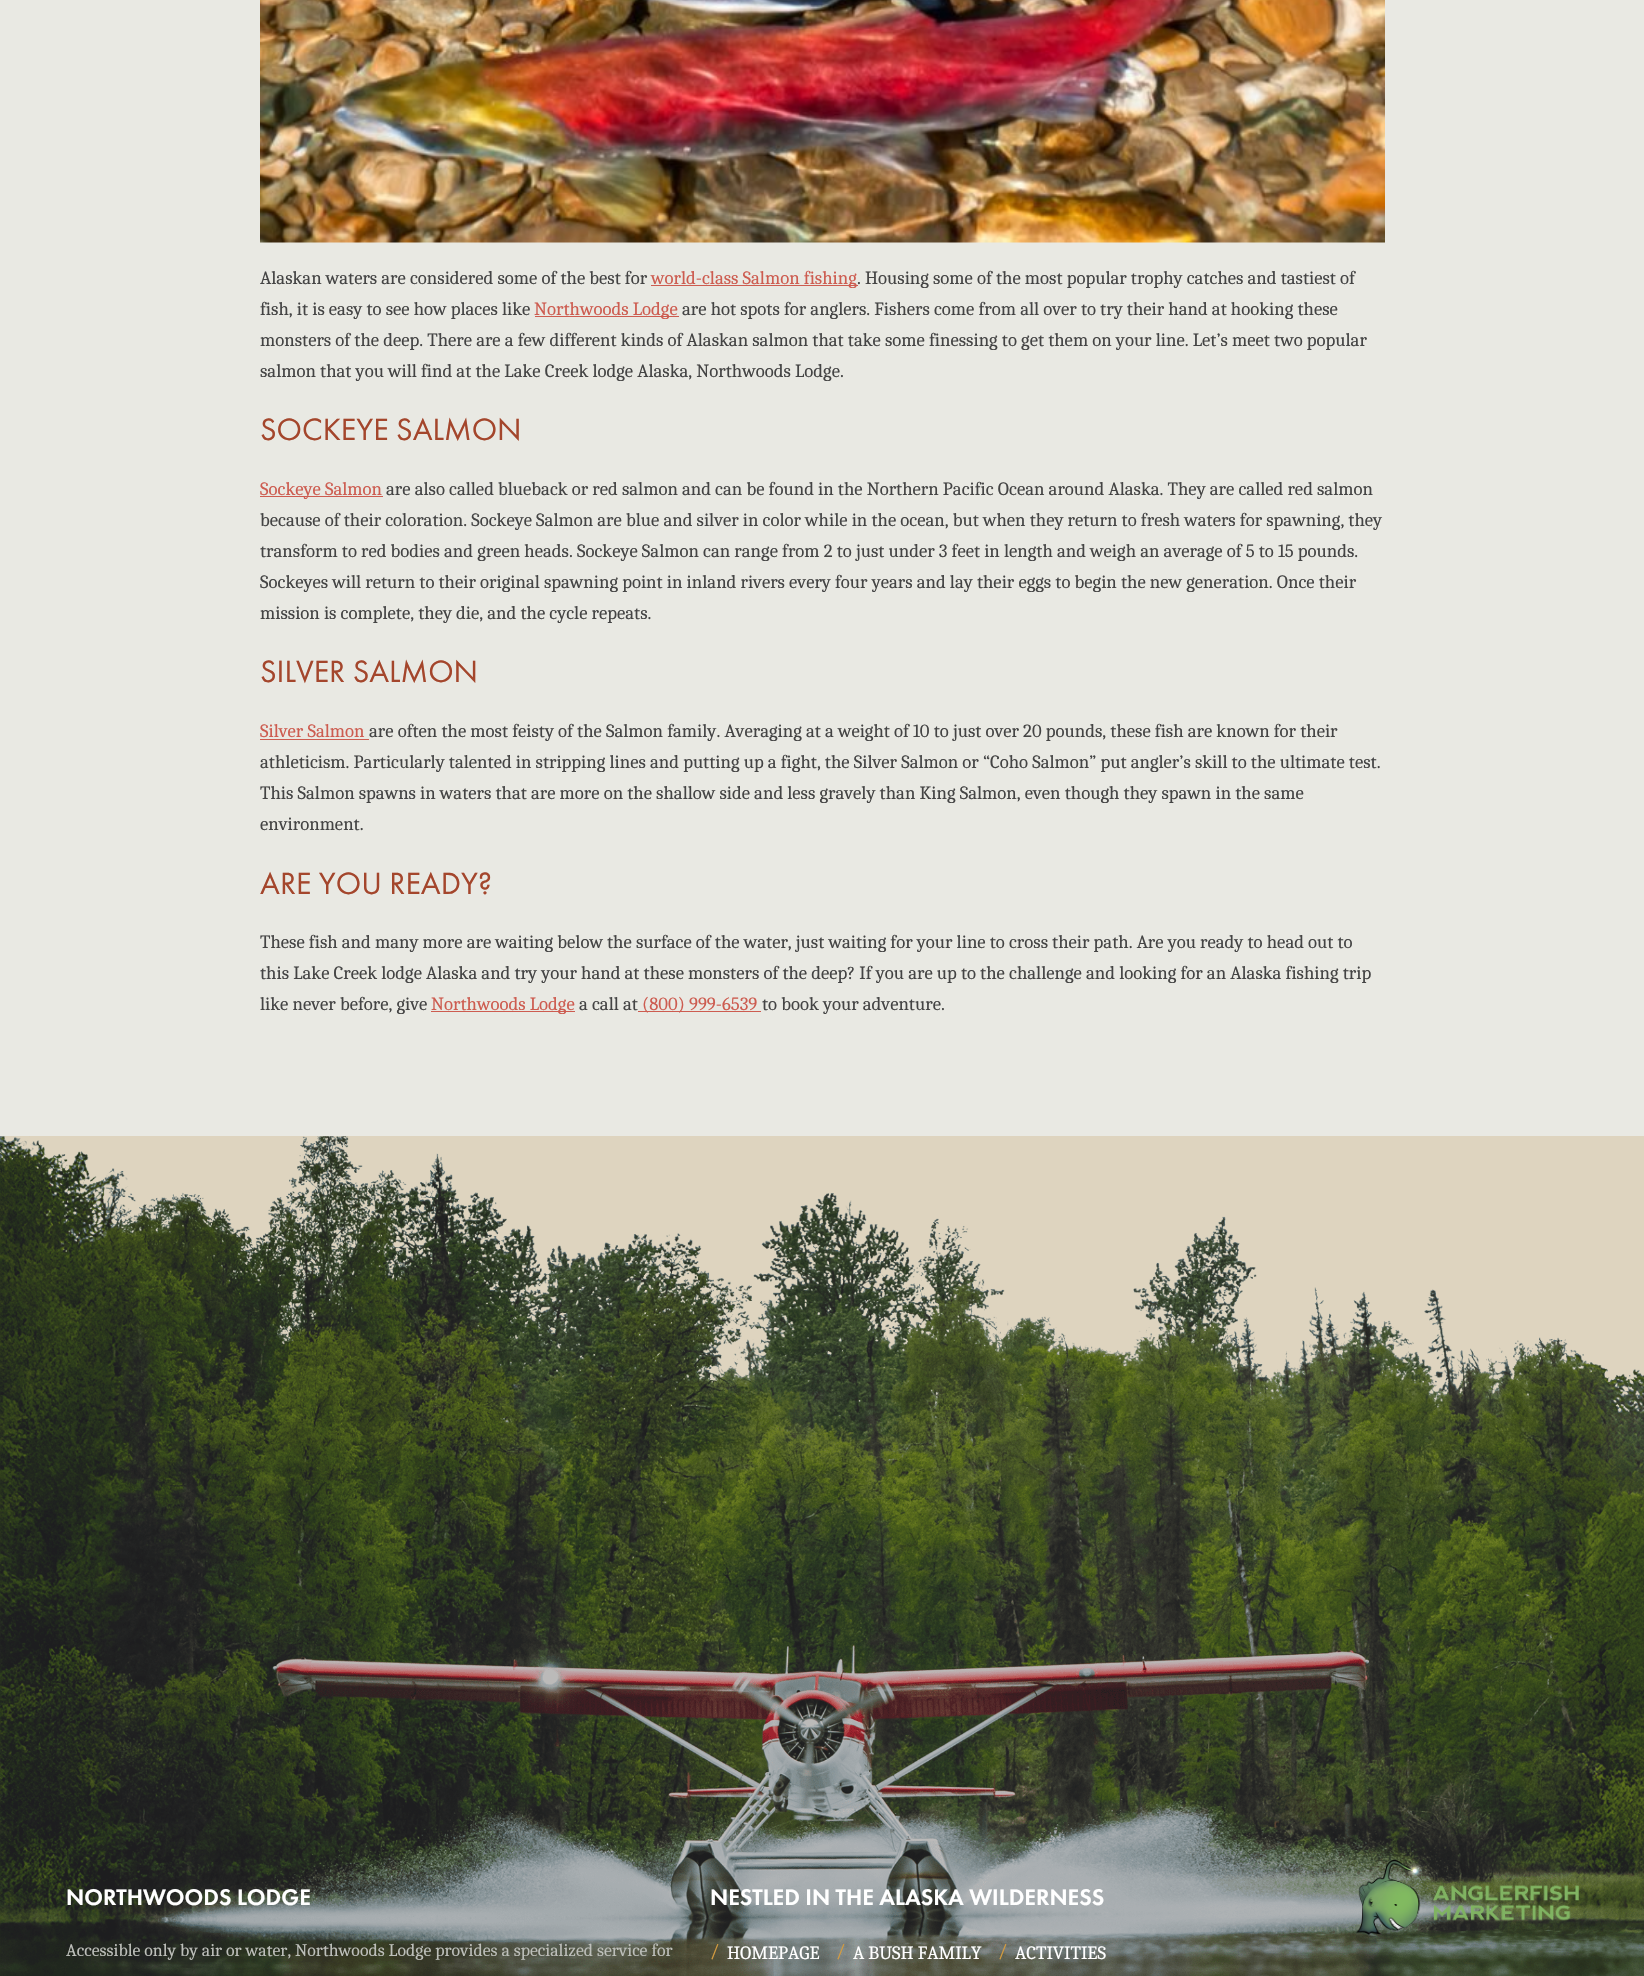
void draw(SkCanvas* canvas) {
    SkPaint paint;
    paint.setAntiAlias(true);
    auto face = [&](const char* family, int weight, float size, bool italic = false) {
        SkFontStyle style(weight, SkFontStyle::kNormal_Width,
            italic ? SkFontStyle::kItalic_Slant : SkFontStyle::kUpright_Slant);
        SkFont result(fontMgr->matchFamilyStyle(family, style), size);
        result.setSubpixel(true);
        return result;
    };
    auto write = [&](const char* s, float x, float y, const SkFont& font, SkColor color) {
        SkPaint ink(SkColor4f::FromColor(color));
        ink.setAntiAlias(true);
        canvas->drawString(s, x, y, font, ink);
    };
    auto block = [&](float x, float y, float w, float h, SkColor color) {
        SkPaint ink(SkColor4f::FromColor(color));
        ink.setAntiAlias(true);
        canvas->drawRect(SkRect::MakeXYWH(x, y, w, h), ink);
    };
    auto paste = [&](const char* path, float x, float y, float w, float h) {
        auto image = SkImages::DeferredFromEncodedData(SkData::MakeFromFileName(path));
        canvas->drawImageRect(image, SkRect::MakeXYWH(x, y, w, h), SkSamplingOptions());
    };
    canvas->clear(SkColorSetRGB(222, 212, 191));
    block(0, 0, 1644, 1136, SkColorSetRGB(233, 233, 227));
    paste("pic1.png", 260, 0, 1125, 243);
    auto kFont1 = face("Caladea", 400, 18.75f);
    write("Alaskan waters are considered some of the best for", 260, 284, kFont1, SkColorSetRGB(68, 68, 68));
    block(651, 285, 207, 1, SkColorSetRGB(205, 92, 80));
    write("world-class Salmon fishing", 651, 284, kFont1, SkColorSetRGB(205, 92, 80));
    write(". Housing some of the most popular trophy catches and tastiest of", 857, 284, kFont1, SkColorSetRGB(68, 68, 68));
    write("fish, it is easy to see how places like", 260, 315, kFont1, SkColorSetRGB(68, 68, 68));
    block(535, 316, 144, 1, SkColorSetRGB(205, 92, 80));
    write("Northwoods Lodge", 534, 315, kFont1, SkColorSetRGB(205, 92, 80));
    write("are hot spots for anglers. Fishers come from all over to try their hand at hooking these", 682, 315, kFont1, SkColorSetRGB(68, 68, 68));
    write("monsters of the deep. There are a few different kinds of Alaskan salmon that take some finessing to get them on your line. Let’s meet two popular", 260, 346, kFont1, SkColorSetRGB(68, 68, 68));
    write("salmon that you will find at the Lake Creek lodge Alaska, Northwoods Lodge.", 260, 377, kFont1, SkColorSetRGB(68, 68, 68));
    auto kFont2 = face("Futura PT", 400, 32);
    write("SOCKEYE SALMON", 260, 440, kFont2, SkColorSetRGB(164, 70, 44));
    block(260, 496, 123, 1, SkColorSetRGB(205, 92, 80));
    write("Sockeye Salmon", 260, 495, kFont1, SkColorSetRGB(205, 92, 80));
    write("are also called blueback or red salmon and can be found in the Northern Pacific Ocean around Alaska. They are called red salmon", 386, 495, kFont1, SkColorSetRGB(68, 68, 68));
    write("because of their coloration. Sockeye Salmon are blue and silver in color while in the ocean, but when they return to fresh waters for spawning, they", 260, 526, kFont1, SkColorSetRGB(68, 68, 68));
    write("transform to red bodies and green heads. Sockeye Salmon can range from 2 to just under 3 feet in length and weigh an average of 5 to 15 pounds.", 260, 557, kFont1, SkColorSetRGB(68, 68, 68));
    write("Sockeyes will return to their original spawning point in inland rivers every four years and lay their eggs to begin the new generation. Once their", 260, 588, kFont1, SkColorSetRGB(68, 68, 68));
    write("mission is complete, they die, and the cycle repeats.", 260, 619, kFont1, SkColorSetRGB(68, 68, 68));
    write("SILVER SALMON", 260, 682, kFont2, SkColorSetRGB(164, 70, 44));
    write("Silver Salmon", 260, 737, kFont1, SkColorSetRGB(205, 92, 80));
    block(260, 739, 109, 1, SkColorSetRGB(205, 92, 80));
    write("are often the most feisty of the Salmon family. Averaging at a weight of 10 to just over 20 pounds, these fish are known for their", 369, 737, kFont1, SkColorSetRGB(68, 68, 68));
    write("athleticism. Particularly talented in stripping lines and putting up a fight, the Silver Salmon or “Coho Salmon” put angler’s skill to the ultimate test.", 260, 768, kFont1, SkColorSetRGB(68, 68, 68));
    write("This Salmon spawns in waters that are more on the shallow side and less gravely than King Salmon, even though they spawn in the same", 260, 799, kFont1, SkColorSetRGB(68, 68, 68));
    write("environment.", 260, 830, kFont1, SkColorSetRGB(68, 68, 68));
    write("ARE YOU READY?", 260, 894, kFont2, SkColorSetRGB(164, 70, 44));
    write("These fish and many more are waiting below the surface of the water, just waiting for your line to cross their path. Are you ready to head out to", 260, 948, kFont1, SkColorSetRGB(68, 68, 68));
    write("this Lake Creek lodge Alaska and try your hand at these monsters of the deep? If you are up to the challenge and looking for an Alaska fishing trip", 260, 979, kFont1, SkColorSetRGB(68, 68, 68));
    write("like never before, give", 260, 1010, kFont1, SkColorSetRGB(68, 68, 68));
    block(431, 1011, 144, 1, SkColorSetRGB(205, 92, 80));
    write("Northwoods Lodge", 431, 1010, kFont1, SkColorSetRGB(205, 92, 80));
    write("a call at", 579, 1010, kFont1, SkColorSetRGB(68, 68, 68));
    block(638, 1011, 123, 1, SkColorSetRGB(205, 92, 80));
    write("(800) 999-6539", 642, 1010, kFont1, SkColorSetRGB(205, 92, 80));
    write("to book your adventure.", 762, 1010, kFont1, SkColorSetRGB(68, 68, 68));
    paste("pic2.png", 0, 1136, 1644, 840);
    auto kFont3 = face("Futura PT", 500, 23.4f);
    write("NORTHWOODS LODGE", 66, 1905, kFont3, SK_ColorWHITE);
    auto kFont4 = face("Caladea", 400, 17.8f);
    write("Accessible only by air or water, Northwoods Lodge provides a specialized service for", 66, 1956, kFont4, SkColorSetRGB(189, 191, 186));
    write("NESTLED IN THE ALASKA WILDERNESS", 710, 1905, kFont3, SK_ColorWHITE);
    write("/", 710, 1957, kFont1, SkColorSetRGB(213, 156, 63));
    write("HOMEPAGE", 727, 1959, kFont1, SK_ColorWHITE);
    write("/", 836, 1957, kFont1, SkColorSetRGB(213, 156, 63));
    write("A BUSH FAMILY", 853, 1959, kFont1, SK_ColorWHITE);
    write("/", 998, 1957, kFont1, SkColorSetRGB(213, 156, 63));
    write("ACTIVITIES", 1015, 1959, kFont1, SK_ColorWHITE);
    paste("pic3.png", 1355, 1860, 224, 75);
}
